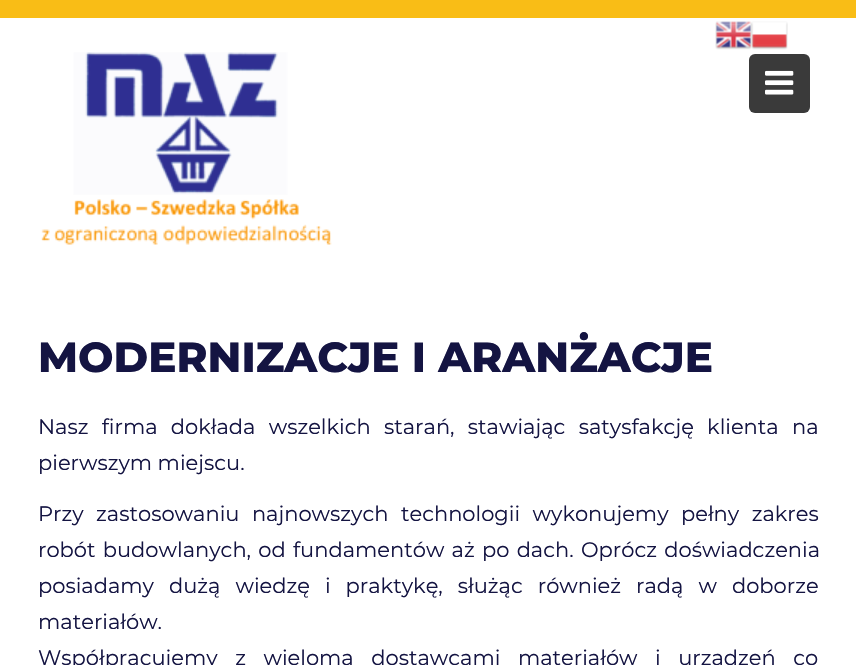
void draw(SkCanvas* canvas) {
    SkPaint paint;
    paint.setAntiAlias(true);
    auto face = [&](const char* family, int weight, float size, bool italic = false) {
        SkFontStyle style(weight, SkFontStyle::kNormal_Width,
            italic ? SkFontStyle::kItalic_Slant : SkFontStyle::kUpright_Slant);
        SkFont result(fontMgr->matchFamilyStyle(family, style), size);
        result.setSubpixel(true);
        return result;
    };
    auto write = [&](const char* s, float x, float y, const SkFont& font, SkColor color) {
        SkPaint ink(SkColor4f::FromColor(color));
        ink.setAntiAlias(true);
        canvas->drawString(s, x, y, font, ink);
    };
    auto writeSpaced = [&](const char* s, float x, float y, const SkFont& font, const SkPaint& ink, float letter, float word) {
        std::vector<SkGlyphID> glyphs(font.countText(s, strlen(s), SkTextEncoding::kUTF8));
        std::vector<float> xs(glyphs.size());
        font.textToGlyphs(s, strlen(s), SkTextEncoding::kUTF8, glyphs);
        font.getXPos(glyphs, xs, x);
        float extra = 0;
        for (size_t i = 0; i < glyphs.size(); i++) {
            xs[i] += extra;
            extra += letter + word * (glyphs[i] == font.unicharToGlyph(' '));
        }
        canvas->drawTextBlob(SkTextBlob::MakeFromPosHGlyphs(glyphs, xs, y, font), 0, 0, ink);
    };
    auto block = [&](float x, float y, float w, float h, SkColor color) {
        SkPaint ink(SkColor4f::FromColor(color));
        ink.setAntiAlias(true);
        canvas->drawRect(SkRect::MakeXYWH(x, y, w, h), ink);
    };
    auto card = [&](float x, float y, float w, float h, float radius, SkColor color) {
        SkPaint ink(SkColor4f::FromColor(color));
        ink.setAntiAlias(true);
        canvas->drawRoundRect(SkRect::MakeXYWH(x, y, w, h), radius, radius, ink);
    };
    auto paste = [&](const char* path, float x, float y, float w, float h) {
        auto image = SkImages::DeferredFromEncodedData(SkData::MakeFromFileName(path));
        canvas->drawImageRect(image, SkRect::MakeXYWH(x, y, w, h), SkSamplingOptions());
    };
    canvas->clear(SK_ColorWHITE);
    paste("pic1.png", 715, 21, 37, 29);
    paste("pic2.png", 751, 21, 37, 29);
    block(0, 0, 856, 18, SkColorSetRGB(249, 189, 22));
    paste("pic3.png", 41, 52, 291, 193);
    card(749, 54, 61, 59, 6, SkColorSetRGB(58, 58, 58));
    paste("pic4.png", 765, 70, 29, 25);
    auto kFont1 = face("Montserrat", 800, 42);
    write("MODERNIZACJE I ARANŻACJE", 38, 372, kFont1, SkColorSetRGB(20, 20, 66));
    auto kFont2 = face("Montserrat", 400, 21);
    paint.setColor(SkColorSetRGB(20, 20, 66));
    writeSpaced("Nasz firma dokłada wszelkich starań, stawiając satysfakcję klienta na", 38, 434, kFont2, paint, 0, 7.75f);
    write("pierwszym miejscu.", 38, 470, kFont2, SkColorSetRGB(20, 20, 66));
    writeSpaced("Przy zastosowaniu najnowszych technologii wykonujemy pełny zakres", 38, 521, kFont2, paint, 0, 7);
    writeSpaced("robót budowlanych, od fundamentów aż po dach. Oprócz doświadczenia", 38, 557, kFont2, paint, 0, 1.75f);
    writeSpaced("posiadamy dużą wiedzę i praktykę, służąc również radą w doborze", 38, 593, kFont2, paint, 0, 9.5f);
    write("materiałów.", 38, 629, kFont2, SkColorSetRGB(20, 20, 66));
    writeSpaced("Współpracujemy z wieloma dostawcami materiałów i urządzeń co", 38, 665, kFont2, paint, 0, 12);
}
